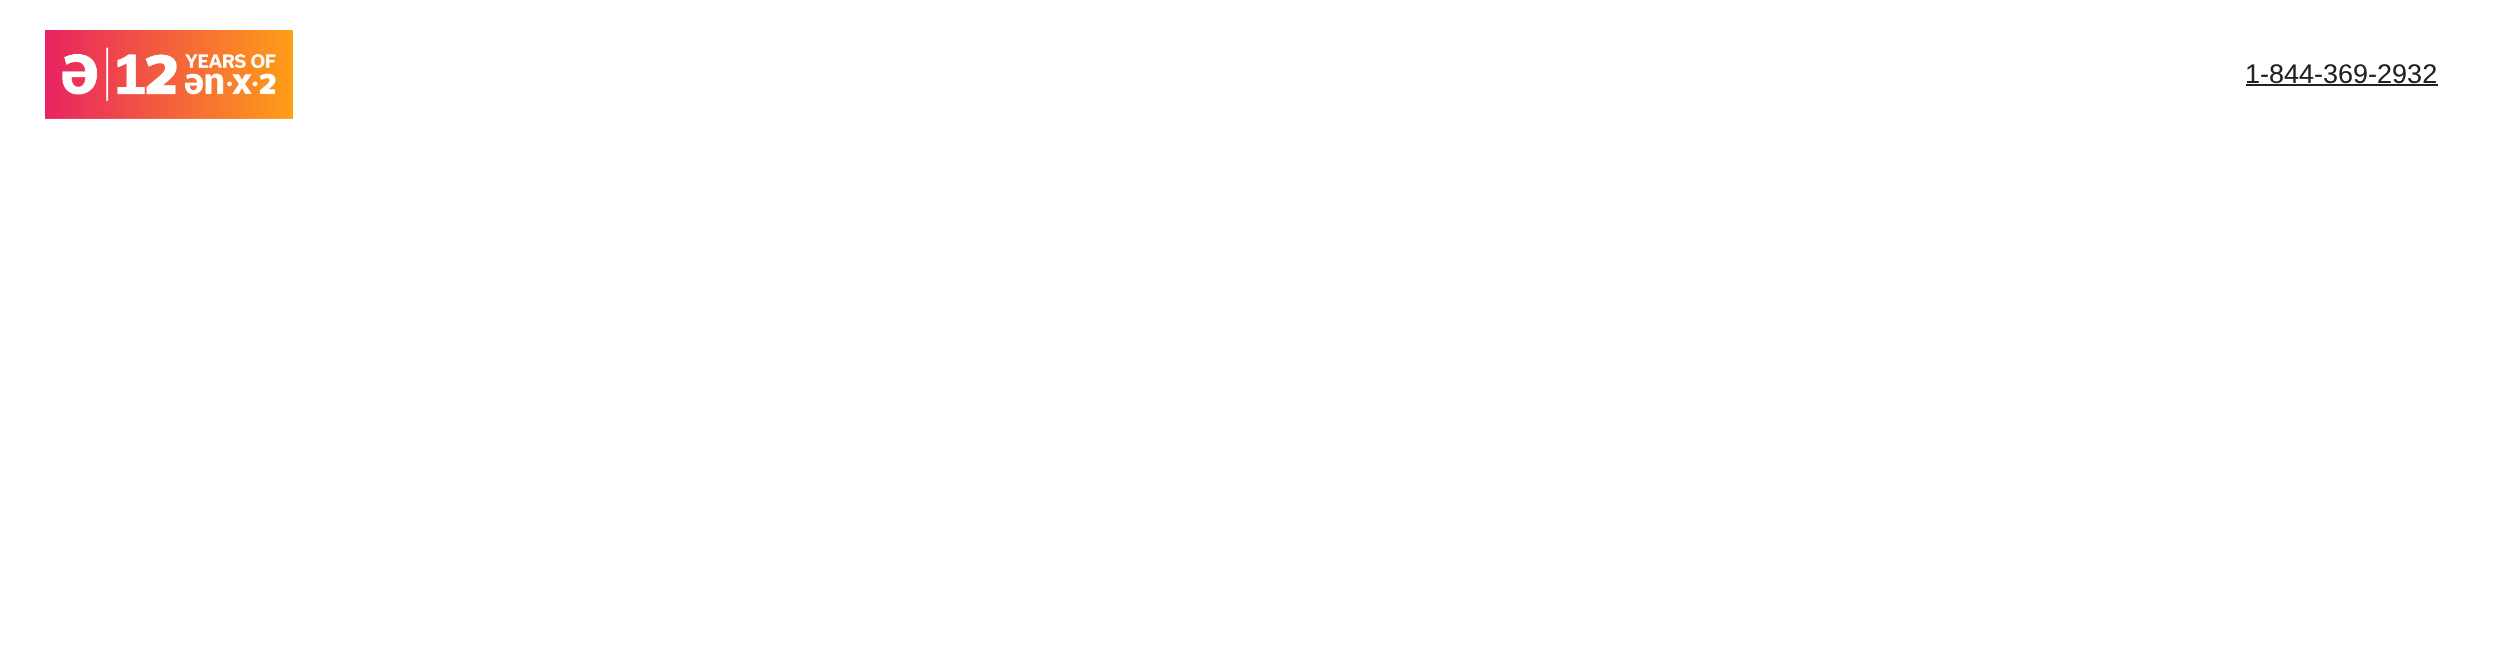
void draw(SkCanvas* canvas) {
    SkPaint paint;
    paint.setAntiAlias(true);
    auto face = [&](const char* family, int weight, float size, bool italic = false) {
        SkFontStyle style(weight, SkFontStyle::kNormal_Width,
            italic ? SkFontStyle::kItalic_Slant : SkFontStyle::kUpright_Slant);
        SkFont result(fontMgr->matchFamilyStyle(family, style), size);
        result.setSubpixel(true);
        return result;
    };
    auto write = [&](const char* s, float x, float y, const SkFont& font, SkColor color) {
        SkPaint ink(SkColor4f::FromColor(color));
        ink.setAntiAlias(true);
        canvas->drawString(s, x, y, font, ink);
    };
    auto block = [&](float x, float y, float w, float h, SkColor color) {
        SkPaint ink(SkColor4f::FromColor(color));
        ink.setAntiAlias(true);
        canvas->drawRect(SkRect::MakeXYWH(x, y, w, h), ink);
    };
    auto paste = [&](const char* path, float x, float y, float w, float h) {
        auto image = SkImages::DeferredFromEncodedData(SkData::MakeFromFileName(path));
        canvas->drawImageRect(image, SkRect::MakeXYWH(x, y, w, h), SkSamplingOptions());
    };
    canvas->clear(SK_ColorWHITE);
    paste("pic1.png", 45, 30, 248, 89);
    auto kFont1 = face("Liberation Sans", 400, 27);
    write("1-844-369-2932", 2245, 83, kFont1, SkColorSetRGB(34, 34, 34));
    block(2246, 84, 192, 2, SkColorSetRGB(34, 34, 34));
}
